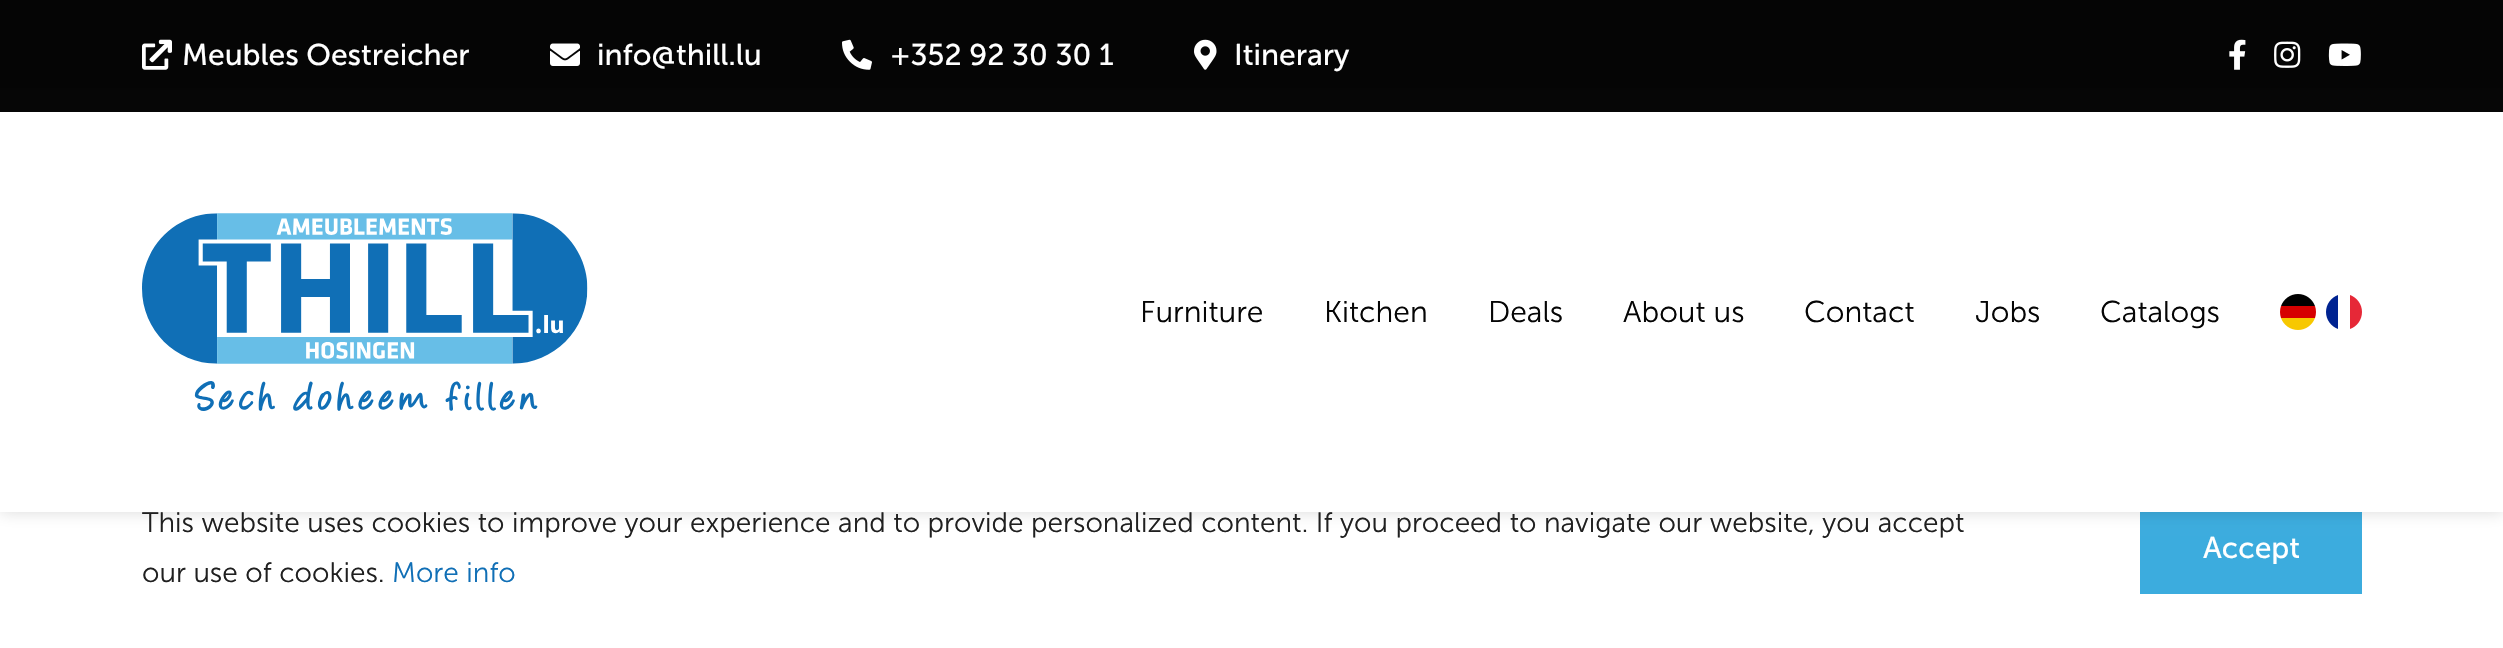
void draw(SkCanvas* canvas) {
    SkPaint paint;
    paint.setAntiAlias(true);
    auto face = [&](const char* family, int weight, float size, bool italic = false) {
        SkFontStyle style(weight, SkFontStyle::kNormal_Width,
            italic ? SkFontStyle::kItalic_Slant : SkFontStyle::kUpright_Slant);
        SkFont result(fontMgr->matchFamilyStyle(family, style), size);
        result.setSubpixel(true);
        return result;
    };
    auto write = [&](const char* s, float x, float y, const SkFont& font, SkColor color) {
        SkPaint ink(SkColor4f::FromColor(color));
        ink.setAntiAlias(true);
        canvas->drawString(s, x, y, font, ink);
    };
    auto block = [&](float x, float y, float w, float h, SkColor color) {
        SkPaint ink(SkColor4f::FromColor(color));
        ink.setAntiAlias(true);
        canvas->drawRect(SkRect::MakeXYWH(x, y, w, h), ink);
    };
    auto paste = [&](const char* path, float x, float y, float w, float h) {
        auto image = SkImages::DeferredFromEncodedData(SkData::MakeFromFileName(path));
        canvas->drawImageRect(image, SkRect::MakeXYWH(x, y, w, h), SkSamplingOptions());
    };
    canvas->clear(SkColorSetRGB(5, 5, 5));
    paste("pic1.png", 142, 39, 30, 31);
    auto kFont1 = face("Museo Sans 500", 400, 30);
    write("Meubles Oestreicher", 182, 65, kFont1, SK_ColorWHITE);
    paste("pic2.png", 550, 43, 30, 23);
    write("info@thill.lu", 597, 65, kFont1, SK_ColorWHITE);
    paste("pic3.png", 842, 39, 30, 31);
    write("+352 92 30 30 1", 890, 65, kFont1, SK_ColorWHITE);
    paste("pic4.png", 1194, 39, 23, 31);
    write("Itinerary", 1234, 65, kFont1, SK_ColorWHITE);
    paste("pic5.png", 2229, 39, 17, 31);
    paste("pic6.png", 2274, 41, 27, 27);
    paste("pic7.png", 2328, 43, 33, 23);
    block(0, 512, 2503, 136, SK_ColorWHITE);
    block(2140, 512, 222, 82, SkColorSetRGB(60, 172, 222));
    paint.setColor(SkColorSetARGB(38, 5, 5, 5));
    paint.setMaskFilter(SkMaskFilter::MakeBlur(kNormal_SkBlurStyle, 8));
    canvas->drawRect(SkRect::MakeXYWH(0, 112, 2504, 400), paint);
    paint.setMaskFilter(nullptr);
    block(0, 112, 2503, 400, SK_ColorWHITE);
    paste("pic8.png", 142, 213, 446, 198);
    auto kFont2 = face("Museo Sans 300", 300, 30);
    write("Furniture", 1140, 322, kFont2, SkColorSetRGB(5, 5, 5));
    write("Kitchen", 1324, 322, kFont2, SkColorSetRGB(5, 5, 5));
    write("Deals", 1488, 322, kFont2, SkColorSetRGB(5, 5, 5));
    write("About us", 1623, 322, kFont2, SkColorSetRGB(5, 5, 5));
    write("Contact", 1804, 322, kFont2, SkColorSetRGB(5, 5, 5));
    write("Jobs", 1975, 322, kFont2, SkColorSetRGB(5, 5, 5));
    write("Catalogs", 2100, 322, kFont2, SkColorSetRGB(5, 5, 5));
    paste("pic9.png", 2280, 294, 36, 36);
    paste("pic10.png", 2326, 295, 36, 34);
    auto kFont3 = face("Museo Sans 300", 300, 28);
    write("This website uses cookies to improve your experience and to provide personalized content. If you proceed to navigate our website, you accept", 142, 532, kFont3, SkColorSetRGB(32, 32, 32));
    write("our use of cookies.", 142, 582, kFont3, SkColorSetRGB(32, 32, 32));
    write("More info", 392, 582, kFont3, SkColorSetRGB(16, 111, 182));
    write("Accept", 2203, 558, kFont1, SK_ColorWHITE);
}
